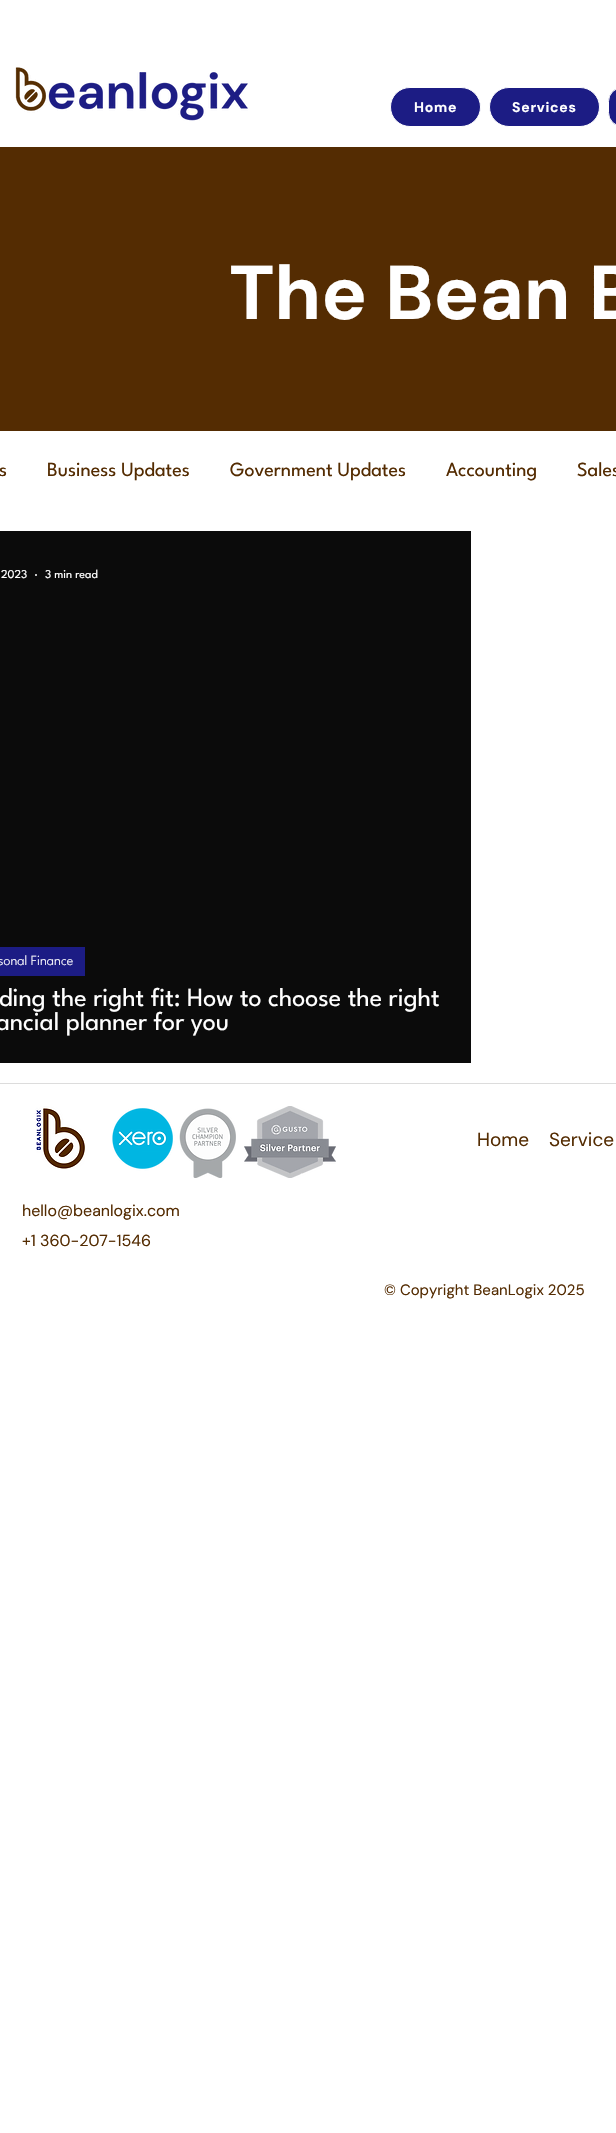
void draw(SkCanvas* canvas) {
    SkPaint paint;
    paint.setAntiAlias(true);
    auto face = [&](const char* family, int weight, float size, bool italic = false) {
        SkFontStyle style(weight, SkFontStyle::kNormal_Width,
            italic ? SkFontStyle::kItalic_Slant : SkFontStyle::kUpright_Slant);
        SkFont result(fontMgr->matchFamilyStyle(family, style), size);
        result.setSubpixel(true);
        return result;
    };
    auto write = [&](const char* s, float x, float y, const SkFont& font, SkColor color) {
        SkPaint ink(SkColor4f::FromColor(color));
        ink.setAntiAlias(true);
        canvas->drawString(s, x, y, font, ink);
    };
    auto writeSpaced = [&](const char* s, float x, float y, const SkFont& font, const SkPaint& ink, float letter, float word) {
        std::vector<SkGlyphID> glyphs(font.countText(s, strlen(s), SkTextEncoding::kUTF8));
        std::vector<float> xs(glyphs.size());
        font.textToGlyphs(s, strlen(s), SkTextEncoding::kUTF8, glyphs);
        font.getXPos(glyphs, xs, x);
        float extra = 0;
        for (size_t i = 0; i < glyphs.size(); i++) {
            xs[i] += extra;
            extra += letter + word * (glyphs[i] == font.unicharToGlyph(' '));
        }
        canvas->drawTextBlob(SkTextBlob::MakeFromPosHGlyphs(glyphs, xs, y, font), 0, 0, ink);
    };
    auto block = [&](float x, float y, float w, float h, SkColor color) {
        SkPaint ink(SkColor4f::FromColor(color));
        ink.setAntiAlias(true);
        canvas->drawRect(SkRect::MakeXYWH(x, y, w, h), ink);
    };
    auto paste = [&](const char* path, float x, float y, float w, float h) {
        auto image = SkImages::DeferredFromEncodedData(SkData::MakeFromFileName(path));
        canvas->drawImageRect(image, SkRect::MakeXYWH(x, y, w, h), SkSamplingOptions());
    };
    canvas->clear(SK_ColorWHITE);
    paste("pic1.png", 15, 67, 233, 54);
    paint.setColor(SkColorSetRGB(28, 28, 132));
    canvas->drawRoundRect(SkRect::MakeXYWH(390.5f, 87.5f, 90, 39), 19.5f, 19.5f, paint);
    paint.setStyle(SkPaint::kStroke_Style);
    paint.setStrokeWidth(1);
    paint.setColor(SK_ColorWHITE);
    canvas->drawRoundRect(SkRect::MakeXYWH(390.5f, 87.5f, 90, 39), 19.5f, 19.5f, paint);
    auto kFont1 = face("DM Sans", 700, 14);
    paint.setStyle(SkPaint::kFill_Style);
    writeSpaced("Home", 414, 112, kFont1, paint, 0.75f, 0);
    paint.setColor(SkColorSetRGB(28, 28, 132));
    canvas->drawRoundRect(SkRect::MakeXYWH(489.5f, 87.5f, 110, 39), 19.5f, 19.5f, paint);
    paint.setStyle(SkPaint::kStroke_Style);
    paint.setColor(SK_ColorWHITE);
    canvas->drawRoundRect(SkRect::MakeXYWH(489.5f, 87.5f, 110, 39), 19.5f, 19.5f, paint);
    paint.setStyle(SkPaint::kFill_Style);
    writeSpaced("Services", 512, 112, kFont1, paint, 0.75f, 0);
    paint.setColor(SkColorSetRGB(28, 28, 132));
    canvas->drawRoundRect(SkRect::MakeXYWH(608.5f, 87.5f, 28, 39), 19.5f, 19.5f, paint);
    paint.setStyle(SkPaint::kStroke_Style);
    paint.setColor(SK_ColorWHITE);
    canvas->drawRoundRect(SkRect::MakeXYWH(608.5f, 87.5f, 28, 39), 19.5f, 19.5f, paint);
    block(0, 147, 616, 284, SkColorSetRGB(84, 44, 2));
    auto kFont2 = face("DM Sans", 700, 76);
    write("The Bean B", 229, 319, kFont2, SK_ColorWHITE);
    auto kFont3 = face("League Spartan", 400, 20);
    write("s", -1, 476, kFont3, SkColorSetRGB(84, 44, 2));
    write("Business Updates", 47, 476, kFont3, SkColorSetRGB(84, 44, 2));
    write("Government Updates", 230, 476, kFont3, SkColorSetRGB(84, 44, 2));
    write("Accounting", 446, 476, kFont3, SkColorSetRGB(84, 44, 2));
    write("Sales", 577, 476, kFont3, SkColorSetRGB(84, 44, 2));
    block(0, 531, 471, 532, SkColorSetRGB(11, 11, 11));
    auto kFont4 = face("League Spartan", 400, 12);
    write("2023", 1, 578, kFont4, SK_ColorWHITE);
    paint.setStyle(SkPaint::kFill_Style);
    canvas->drawCircle(36, 575, 1, paint);
    write("3 min read", 45, 578, kFont4, SK_ColorWHITE);
    block(0, 947, 85, 29, SkColorSetRGB(28, 28, 132));
    auto kFont5 = face("League Spartan", 100, 14);
    write("sonal Finance", -2, 965, kFont5, SK_ColorWHITE);
    auto kFont6 = face("League Spartan", 400, 26);
    write("ding the right fit: How to choose the right", -1, 1006, kFont6, SK_ColorWHITE);
    write("ancial planner for you", -4, 1030, kFont6, SK_ColorWHITE);
    block(0, 1083, 616, 1, SkColorSetRGB(220, 220, 220));
    paste("pic2.png", 35, 1106, 50, 63);
    paste("pic3.png", 112, 1108, 124, 70);
    paste("pic4.png", 244, 1106, 92, 72);
    auto kFont7 = face("DM Sans", 400, 19);
    write("Home", 477, 1146, kFont7, SkColorSetRGB(84, 44, 2));
    write("Service", 549, 1146, kFont7, SkColorSetRGB(84, 44, 2));
    auto kFont8 = face("DM Sans", 400, 16);
    write("hello@beanlogix.com", 22, 1216, kFont8, SkColorSetRGB(84, 44, 2));
    write("+1 360-207-1546", 22, 1246, kFont8, SkColorSetRGB(84, 44, 2));
    auto kFont9 = face("DM Sans", 400, 15);
    write("© Copyright BeanLogix 2025", 384, 1295, kFont9, SkColorSetRGB(84, 44, 2));
}
